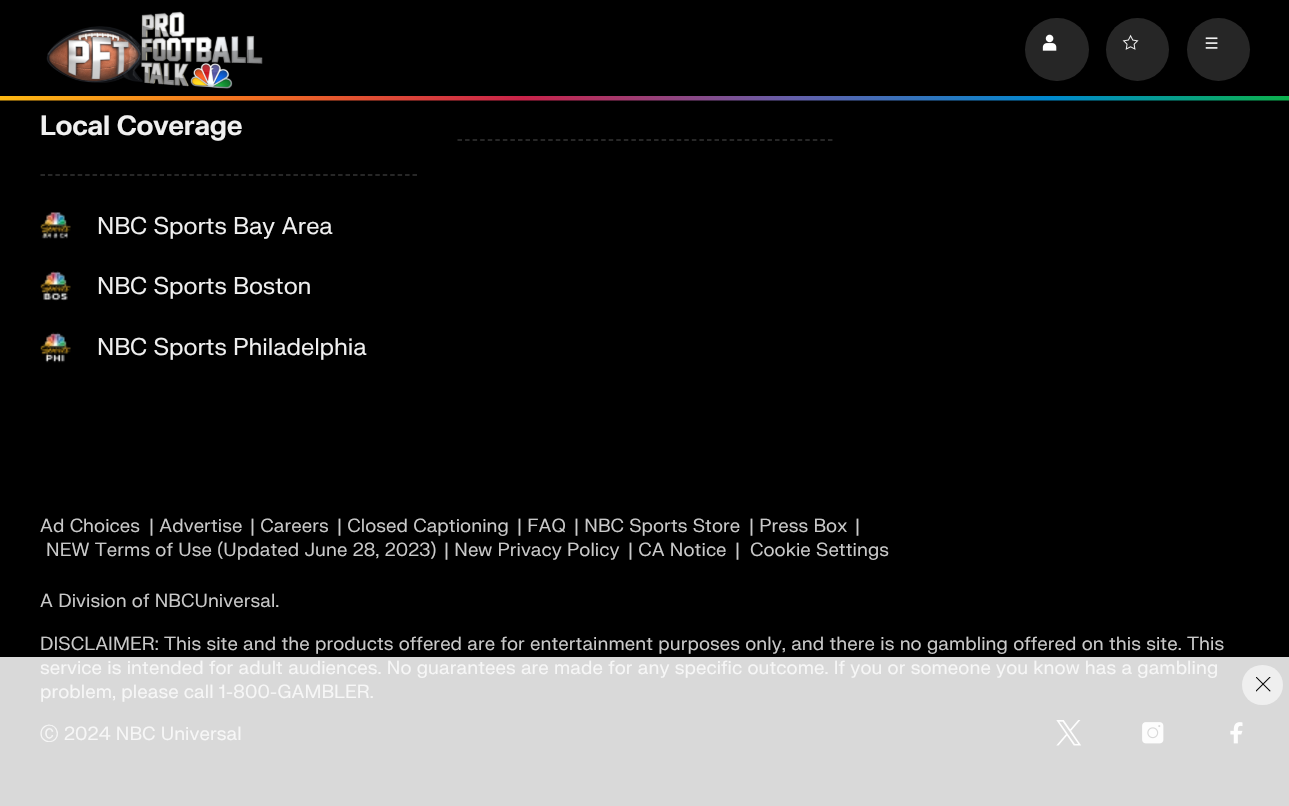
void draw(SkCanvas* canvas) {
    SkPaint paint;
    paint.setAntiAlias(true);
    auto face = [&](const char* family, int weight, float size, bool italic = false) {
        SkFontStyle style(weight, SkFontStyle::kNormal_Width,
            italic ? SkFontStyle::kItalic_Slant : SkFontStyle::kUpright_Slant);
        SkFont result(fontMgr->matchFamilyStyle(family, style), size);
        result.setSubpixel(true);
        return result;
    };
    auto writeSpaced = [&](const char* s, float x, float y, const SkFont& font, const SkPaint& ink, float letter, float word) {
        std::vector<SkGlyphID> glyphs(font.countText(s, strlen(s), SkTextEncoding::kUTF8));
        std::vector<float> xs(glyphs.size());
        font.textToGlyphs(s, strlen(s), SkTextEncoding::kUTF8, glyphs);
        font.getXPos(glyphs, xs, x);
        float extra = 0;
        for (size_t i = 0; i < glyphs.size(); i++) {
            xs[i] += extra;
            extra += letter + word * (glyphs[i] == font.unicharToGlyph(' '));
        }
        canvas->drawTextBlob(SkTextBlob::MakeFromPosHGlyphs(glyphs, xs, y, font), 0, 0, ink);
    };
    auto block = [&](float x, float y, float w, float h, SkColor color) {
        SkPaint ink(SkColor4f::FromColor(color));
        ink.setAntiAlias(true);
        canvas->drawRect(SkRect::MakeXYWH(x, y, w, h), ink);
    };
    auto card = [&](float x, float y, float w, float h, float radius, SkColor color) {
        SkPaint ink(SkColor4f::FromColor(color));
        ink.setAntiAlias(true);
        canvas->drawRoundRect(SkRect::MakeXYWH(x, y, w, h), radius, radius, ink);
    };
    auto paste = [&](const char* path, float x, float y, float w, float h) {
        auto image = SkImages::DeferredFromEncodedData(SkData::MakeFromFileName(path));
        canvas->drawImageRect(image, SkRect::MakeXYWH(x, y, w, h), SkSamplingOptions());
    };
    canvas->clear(SK_ColorBLACK);
    paste("pic1.png", 46, 11, 217, 78);
    card(1025, 18, 64, 63, 31.5f, SkColorSetRGB(38, 38, 38));
    paste("pic2.png", 1042, 34, 15, 17);
    paint.setColor(SkColorSetRGB(38, 38, 38));
    canvas->drawCircle(1137.5f, 49.5f, 31.5f, paint);
    paste("pic3.png", 1122, 34, 17, 16);
    canvas->drawCircle(1218.5f, 49.5f, 31.5f, paint);
    paste("pic4.png", 1205, 37, 13, 12);
    paste("pic5.png", 0, 96, 1289, 5);
    block(0, 657, 1289, 149, SkColorSetRGB(217, 217, 217));
    paint.setStyle(SkPaint::kStroke_Style);
    paint.setStrokeWidth(1.5f);
    paint.setColor(SkColorSetRGB(51, 51, 51));
    paint.setPathEffect(SkDashPathEffect::Make({{4.5f, 2.94f}}, 0));
    canvas->drawPath(SkPathBuilder().moveTo(40.5f, 175).lineTo(417, 175).detach(), paint);
    paint.setPathEffect(nullptr);
    auto kFont1 = face("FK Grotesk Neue", 700, 27);
    paint.setStyle(SkPaint::kFill_Style);
    paint.setColor(SkColorSetRGB(240, 240, 240));
    writeSpaced("Local Coverage", 40, 135, kFont1, paint, -0.25f, 0);
    paste("pic6.png", 40, 212, 31, 27);
    auto kFont2 = face("FK Grotesk Neue", 400, 23.5f);
    writeSpaced("NBC Sports Bay Area", 97, 234, kFont2, paint, -0.05f, 0);
    paste("pic7.png", 40, 271, 31, 30);
    writeSpaced("NBC Sports Boston", 97, 294, kFont2, paint, -0.05f, 0);
    paste("pic8.png", 40, 332, 31, 31);
    writeSpaced("NBC Sports Philadelphia", 97, 355, kFont2, paint, -0.05f, 0);
    paint.setStyle(SkPaint::kStroke_Style);
    paint.setColor(SkColorSetRGB(51, 51, 51));
    paint.setPathEffect(SkDashPathEffect::Make({{4.5f, 3.06f}}, 0));
    canvas->drawPath(SkPathBuilder().moveTo(457.5f, 140).lineTo(832.5f, 140).detach(), paint);
    paint.setPathEffect(nullptr);
    auto kFont3 = face("FK Grotesk Neue", 400, 18.48f);
    paint.setStyle(SkPaint::kFill_Style);
    paint.setColor(SkColorSetRGB(201, 201, 201));
    writeSpaced("Ad Choices", 40, 532, kFont3, paint, 0.09f, 0);
    writeSpaced("| Advertise", 149, 532, kFont3, paint, 0.09f, 0);
    writeSpaced("| Careers", 250, 532, kFont3, paint, 0.09f, 0);
    writeSpaced("| Closed Captioning", 337, 532, kFont3, paint, 0.09f, 0);
    writeSpaced("| FAQ", 517, 532, kFont3, paint, 0.09f, 0);
    writeSpaced("| NBC Sports Store", 574, 532, kFont3, paint, 0.09f, 0);
    writeSpaced("| Press Box", 749, 532, kFont3, paint, 0.09f, 0);
    writeSpaced("|", 855, 532, kFont3, paint, 0.09f, 0);
    writeSpaced("NEW Terms of Use (Updated June 28, 2023)", 46, 556, kFont3, paint, 0.09f, 0);
    writeSpaced("| New Privacy Policy", 444, 556, kFont3, paint, 0.09f, 0);
    writeSpaced("| CA Notice", 628, 556, kFont3, paint, 0.09f, 0);
    writeSpaced("|", 735, 556, kFont3, paint, 0.09f, 0);
    writeSpaced("Cookie Settings", 750, 556, kFont3, paint, 0.09f, 0);
    writeSpaced("A Division of NBCUniversal.", 40, 607, kFont3, paint, 0.09f, 0);
    writeSpaced("DISCLAIMER: This site and the products offered are for entertainment purposes only, and there is no gambling offered on this site. This", 40, 650, kFont3, paint, 0.09f, 0);
    paint.setColor(SkColorSetRGB(247, 247, 247));
    writeSpaced("service is intended for adult audiences. No guarantees are made for any specific outcome. If you or someone you know has a gambling", 40, 674, kFont3, paint, 0.09f, 0);
    writeSpaced("problem, please call 1-800-GAMBLER.", 40, 698, kFont3, paint, 0.09f, 0);
    auto kFont4 = face("WenQuanYi Zen Hei", 500, 18.48f);
    writeSpaced("Ⓒ", 40, 740, kFont4, paint, 0.09f, 0);
    writeSpaced("2024 NBC Universal", 64, 740, kFont3, paint, 0.09f, 0);
    paste("pic9.png", 1056, 720, 26, 26);
    paste("pic10.png", 1142, 722, 22, 22);
    paste("pic11.png", 1230, 722, 13, 22);
    card(1242, 665, 41, 40, 20, SkColorSetRGB(239, 239, 239));
    paste("pic12.png", 1256, 677, 15, 15);
}
